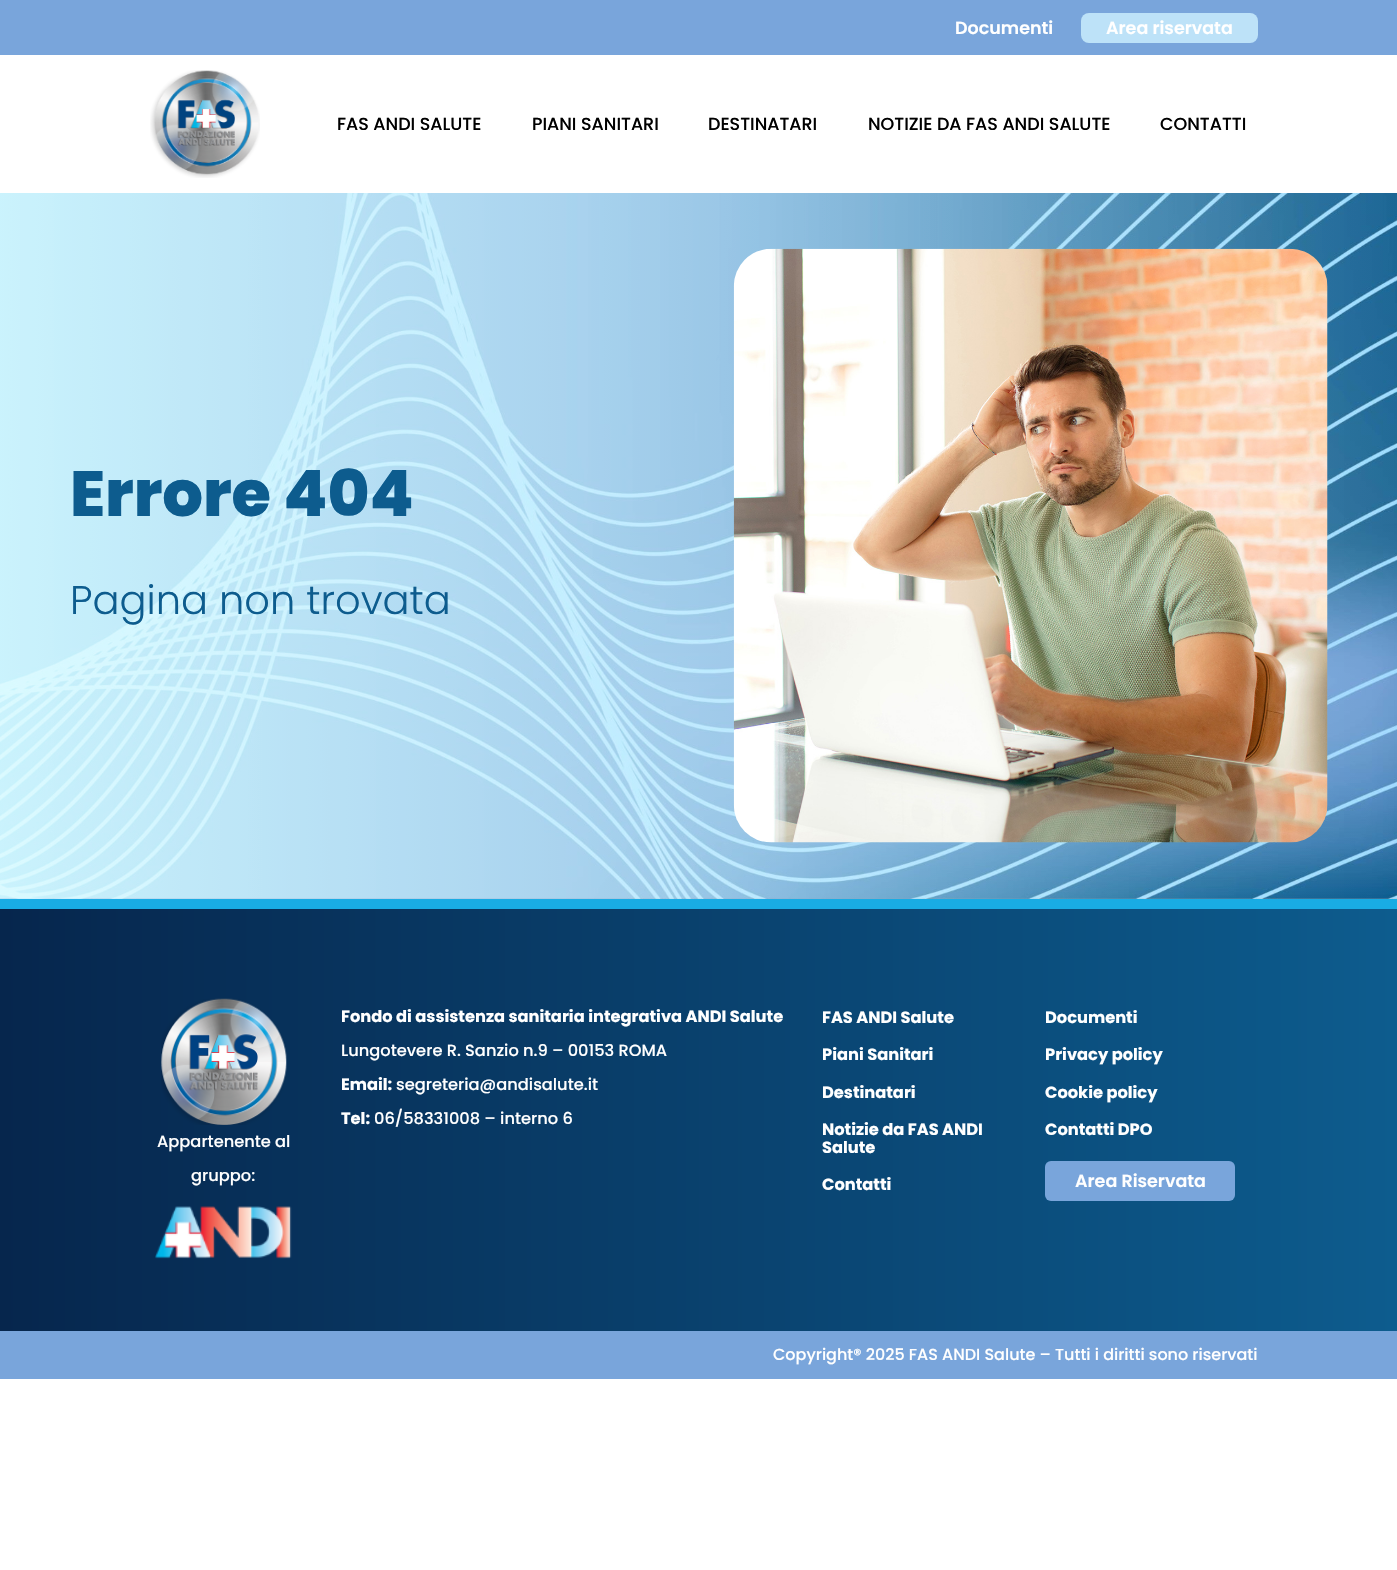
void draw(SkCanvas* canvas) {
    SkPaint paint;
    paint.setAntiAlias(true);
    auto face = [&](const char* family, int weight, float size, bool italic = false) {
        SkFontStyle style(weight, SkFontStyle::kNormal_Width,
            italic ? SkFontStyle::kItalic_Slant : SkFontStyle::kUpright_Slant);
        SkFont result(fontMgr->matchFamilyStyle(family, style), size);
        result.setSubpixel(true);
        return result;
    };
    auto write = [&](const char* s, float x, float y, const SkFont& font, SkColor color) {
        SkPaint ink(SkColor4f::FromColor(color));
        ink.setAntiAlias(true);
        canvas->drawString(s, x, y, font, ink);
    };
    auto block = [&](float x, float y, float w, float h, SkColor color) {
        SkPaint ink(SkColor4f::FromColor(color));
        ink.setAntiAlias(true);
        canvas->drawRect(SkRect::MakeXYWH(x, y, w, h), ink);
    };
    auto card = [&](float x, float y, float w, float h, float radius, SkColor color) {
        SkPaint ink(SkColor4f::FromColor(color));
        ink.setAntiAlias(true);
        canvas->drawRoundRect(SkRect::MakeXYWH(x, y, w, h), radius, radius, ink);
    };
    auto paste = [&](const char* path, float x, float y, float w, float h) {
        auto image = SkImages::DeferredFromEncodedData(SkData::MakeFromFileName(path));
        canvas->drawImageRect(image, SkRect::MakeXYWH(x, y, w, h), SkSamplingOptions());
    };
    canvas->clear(SK_ColorWHITE);
    block(0, 0, 1397, 55, SkColorSetRGB(121, 165, 219));
    auto kFont1 = face("Poppins", 600, 17.5f);
    write("Documenti", 955, 34, kFont1, SK_ColorWHITE);
    card(1081, 13, 177, 30, 8, SkColorSetRGB(189, 226, 248));
    write("Area riservata", 1106, 34, kFont1, SK_ColorWHITE);
    paste("pic1.png", 150, 70, 110, 108);
    auto kFont2 = face("Poppins", 500, 17.5f);
    write("FAS ANDI SALUTE", 337, 130, kFont2, SK_ColorBLACK);
    write("PIANI SANITARI", 532, 130, kFont2, SK_ColorBLACK);
    write("DESTINATARI", 708, 130, kFont2, SK_ColorBLACK);
    write("NOTIZIE DA FAS ANDI SALUTE", 868, 130, kFont2, SK_ColorBLACK);
    write("CONTATTI", 1160, 130, kFont2, SK_ColorBLACK);
    paste("pic2.png", 0, 193, 1397, 706);
    auto kFont3 = face("Poppins", 800, 64);
    write("Errore 404", 70, 516, kFont3, SkColorSetRGB(13, 92, 142));
    auto kFont4 = face("Poppins", 300, 40);
    write("Pagina non trovata", 70, 614, kFont4, SkColorSetRGB(13, 92, 142));
    paste("pic3.png", 733, 248, 595, 595);
    {
        const SkColor colors[] = {SkColorSetRGB(6, 38, 77), SkColorSetRGB(13, 92, 142)};
        const float stops[] = {0, 1};
        const SkPoint ends[] = {{0, 1120}, {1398, 1120}};
        paint.setShader(SkGradientShader::MakeLinear(ends, colors, stops, 2, SkTileMode::kClamp));
        paint.setAlpha(255);
    }
    canvas->drawRect(SkRect::MakeXYWH(0, 909, 1397, 422), paint);
    block(0, 899, 1397, 10, SkColorSetRGB(25, 172, 228));
    paste("pic4.png", 161, 998, 126, 127);
    auto kFont5 = face("Poppins", 500, 16.25f);
    write("Appartenente al", 157, 1147, kFont5, SK_ColorWHITE);
    write("gruppo:", 191, 1181, kFont5, SK_ColorWHITE);
    paste("pic5.png", 155, 1206, 137, 53);
    auto kFont6 = face("Poppins", 700, 16.25f);
    write("Fondo di assistenza sanitaria integrativa ANDI Salute", 341, 1022, kFont6, SK_ColorWHITE);
    write("Lungotevere R. Sanzio n.9 – 00153 ROMA", 341, 1056, kFont5, SK_ColorWHITE);
    write("Email:", 341, 1090, kFont6, SK_ColorWHITE);
    write("segreteria@andisalute.it", 396, 1090, kFont5, SK_ColorWHITE);
    write("Tel:", 341, 1124, kFont6, SK_ColorWHITE);
    write("06/58331008 – interno 6", 374, 1124, kFont5, SK_ColorWHITE);
    write("FAS ANDI Salute", 822, 1023, kFont6, SK_ColorWHITE);
    write("Piani Sanitari", 822, 1060, kFont6, SK_ColorWHITE);
    write("Destinatari", 822, 1098, kFont6, SK_ColorWHITE);
    write("Notizie da FAS ANDI", 822, 1135, kFont6, SK_ColorWHITE);
    write("Salute", 822, 1153, kFont6, SK_ColorWHITE);
    write("Contatti", 822, 1190, kFont6, SK_ColorWHITE);
    write("Documenti", 1045, 1023, kFont6, SK_ColorWHITE);
    write("Privacy policy", 1045, 1060, kFont6, SK_ColorWHITE);
    write("Cookie policy", 1045, 1098, kFont6, SK_ColorWHITE);
    write("Contatti DPO", 1045, 1135, kFont6, SK_ColorWHITE);
    card(1045, 1161, 190, 40, 6, SkColorSetRGB(121, 165, 219));
    write("Area Riservata", 1075, 1187, kFont1, SK_ColorWHITE);
    block(0, 1331, 1397, 48, SkColorSetRGB(121, 165, 219));
    auto kFont7 = face("Poppins", 500, 16);
    write("Copyright® 2025 FAS ANDI Salute – Tutti i diritti sono riservati", 773, 1360, kFont7, SK_ColorWHITE);
}
